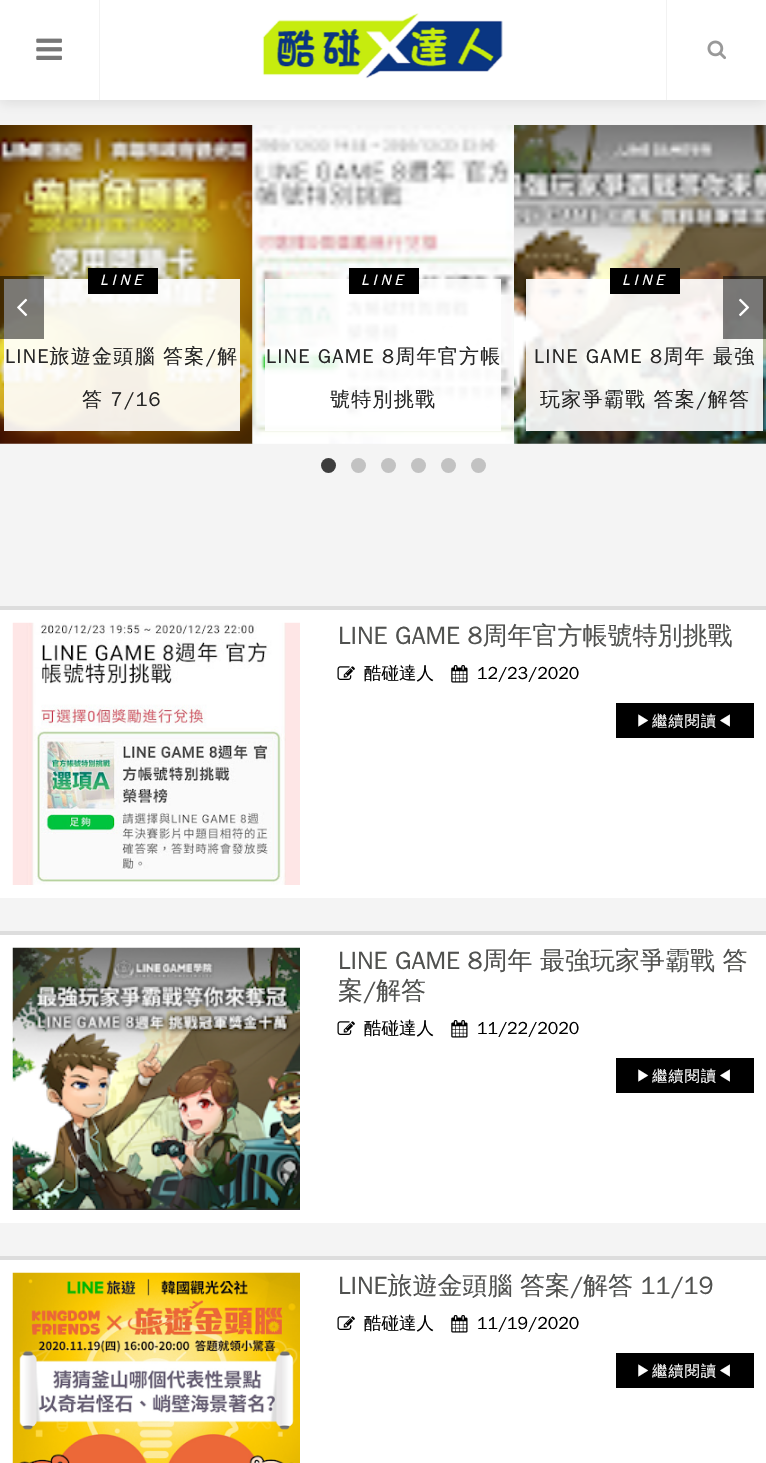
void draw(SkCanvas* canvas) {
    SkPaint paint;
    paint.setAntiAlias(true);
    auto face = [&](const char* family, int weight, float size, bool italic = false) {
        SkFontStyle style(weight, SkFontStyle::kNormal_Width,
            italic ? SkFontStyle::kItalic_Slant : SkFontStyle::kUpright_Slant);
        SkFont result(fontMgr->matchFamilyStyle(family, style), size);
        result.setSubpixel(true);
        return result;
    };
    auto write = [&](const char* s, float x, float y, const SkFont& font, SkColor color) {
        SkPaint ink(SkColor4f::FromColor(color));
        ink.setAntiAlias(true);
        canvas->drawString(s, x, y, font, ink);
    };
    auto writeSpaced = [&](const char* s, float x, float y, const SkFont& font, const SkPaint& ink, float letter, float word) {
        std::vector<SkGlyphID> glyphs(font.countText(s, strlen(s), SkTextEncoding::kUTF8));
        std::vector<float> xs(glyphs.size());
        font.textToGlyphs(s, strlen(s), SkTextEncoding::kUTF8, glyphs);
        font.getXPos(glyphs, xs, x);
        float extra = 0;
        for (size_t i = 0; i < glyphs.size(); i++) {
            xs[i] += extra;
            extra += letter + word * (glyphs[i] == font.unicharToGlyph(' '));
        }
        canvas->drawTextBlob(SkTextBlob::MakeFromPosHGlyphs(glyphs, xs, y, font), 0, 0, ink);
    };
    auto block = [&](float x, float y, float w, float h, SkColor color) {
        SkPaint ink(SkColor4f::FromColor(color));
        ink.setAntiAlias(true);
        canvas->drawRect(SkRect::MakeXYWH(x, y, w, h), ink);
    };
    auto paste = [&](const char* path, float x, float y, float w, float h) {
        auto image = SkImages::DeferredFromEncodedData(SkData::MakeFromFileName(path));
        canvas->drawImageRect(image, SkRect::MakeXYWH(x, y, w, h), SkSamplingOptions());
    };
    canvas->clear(SkColorSetRGB(244, 244, 244));
    paint.setColor(SkColorSetARGB(26, 0, 0, 0));
    paint.setMaskFilter(SkMaskFilter::MakeBlur(kNormal_SkBlurStyle, 6));
    canvas->drawRect(SkRect::MakeXYWH(0, 3, 766, 100), paint);
    paint.setMaskFilter(nullptr);
    block(0, 0, 766, 100, SK_ColorWHITE);
    block(99, 0, 1, 100, SkColorSetRGB(242, 242, 242));
    paste("pic1.png", 36, 38, 26, 22);
    paste("pic2.png", 262, 13, 241, 66);
    block(666, 0, 1, 100, SkColorSetRGB(242, 242, 242));
    paste("pic3.png", 707, 40, 19, 20);
    paste("pic4.png", 0, 125, 254, 319);
    block(4, 279, 236, 152, SkColorSetARGB(230, 255, 255, 255));
    block(88, 268, 70, 26, SK_ColorBLACK);
    auto kFont1 = face("WenQuanYi Zen Hei", 500, 15, true);
    paint.setColor(SK_ColorWHITE);
    writeSpaced("LINE", 100, 285, kFont1, paint, 4, 0);
    auto kFont2 = face("WenQuanYi Zen Hei", 500, 20);
    paint.setColor(SkColorSetRGB(37, 37, 37));
    writeSpaced("LINE旅遊金頭腦 答案/解", 5, 363, kFont2, paint, 1.25f, 0);
    writeSpaced("答 7/16", 82, 406, kFont2, paint, 1.25f, 0);
    paste("pic5.png", 252, 125, 262, 319);
    block(265, 279, 236, 152, SkColorSetARGB(230, 255, 255, 255));
    block(349, 268, 70, 26, SK_ColorBLACK);
    paint.setColor(SK_ColorWHITE);
    writeSpaced("LINE", 361, 285, kFont1, paint, 4, 0);
    paint.setColor(SkColorSetRGB(37, 37, 37));
    writeSpaced("LINE GAME 8周年官方帳", 266, 363, kFont2, paint, 1.25f, 0);
    writeSpaced("號特別挑戰", 330, 406, kFont2, paint, 1.25f, 0);
    paste("pic6.png", 514, 125, 252, 319);
    block(526, 279, 237, 152, SkColorSetARGB(230, 255, 255, 255));
    block(610, 268, 70, 26, SK_ColorBLACK);
    paint.setColor(SK_ColorWHITE);
    writeSpaced("LINE", 622, 285, kFont1, paint, 4, 0);
    paint.setColor(SkColorSetRGB(37, 37, 37));
    writeSpaced("LINE GAME 8周年 最強", 534, 363, kFont2, paint, 1.25f, 0);
    writeSpaced("玩家爭霸戰 答案/解答", 540, 406, kFont2, paint, 1.25f, 0);
    block(0, 276, 44, 63, SkColorSetARGB(128, 0, 0, 0));
    paste("pic7.png", 17, 298, 11, 19);
    block(723, 276, 43, 63, SkColorSetARGB(128, 0, 0, 0));
    paste("pic8.png", 739, 298, 11, 19);
    paint.setColor(SkColorSetRGB(61, 61, 61));
    canvas->drawCircle(328.5f, 465.5f, 7.5f, paint);
    paint.setColor(SkColorSetRGB(194, 194, 194));
    canvas->drawCircle(358.5f, 465.5f, 7.5f, paint);
    canvas->drawCircle(388.5f, 465.5f, 7.5f, paint);
    canvas->drawCircle(418.5f, 465.5f, 7.5f, paint);
    canvas->drawCircle(448.5f, 465.5f, 7.5f, paint);
    canvas->drawCircle(478.5f, 465.5f, 7.5f, paint);
    block(0, 610, 766, 288, SK_ColorWHITE);
    block(0, 606, 766, 4, SkColorSetRGB(221, 221, 221));
    paste("pic9.png", 12, 622, 288, 263);
    auto kFont3 = face("WenQuanYi Zen Hei", 500, 25);
    write("LINE GAME 8周年官方帳號特別挑戰", 338, 644, kFont3, SkColorSetRGB(80, 81, 79));
    paste("pic10.png", 337, 666, 18, 14);
    auto kFont4 = face("WenQuanYi Zen Hei", 500, 17.5f);
    write("酷碰達人", 364, 679, kFont4, SK_ColorBLACK);
    paste("pic11.png", 451, 665, 17, 18);
    write("12/23/2020", 477, 679, kFont4, SK_ColorBLACK);
    block(616, 703, 138, 35, SK_ColorBLACK);
    auto kFont5 = face("WenQuanYi Zen Hei", 500, 15);
    paint.setColor(SK_ColorWHITE);
    writeSpaced("▶繼續閱讀◀", 636, 726, kFont5, paint, 1.25f, 0);
    block(0, 935, 766, 288, SK_ColorWHITE);
    block(0, 931, 766, 4, SkColorSetRGB(221, 221, 221));
    paste("pic12.png", 12, 947, 288, 263);
    write("LINE GAME 8周年 最強玩家爭霸戰 答", 338, 969, kFont3, SkColorSetRGB(80, 81, 79));
    write("案/解答", 338, 999, kFont3, SkColorSetRGB(80, 81, 79));
    paste("pic10.png", 337, 1021, 18, 14);
    write("酷碰達人", 364, 1034, kFont4, SK_ColorBLACK);
    paste("pic11.png", 451, 1020, 17, 18);
    write("11/22/2020", 477, 1034, kFont4, SK_ColorBLACK);
    block(616, 1058, 138, 35, SK_ColorBLACK);
    writeSpaced("▶繼續閱讀◀", 636, 1081, kFont5, paint, 1.25f, 0);
    block(0, 1260, 766, 203, SK_ColorWHITE);
    block(0, 1256, 766, 4, SkColorSetRGB(221, 221, 221));
    paste("pic13.png", 12, 1272, 288, 191);
    write("LINE旅遊金頭腦 答案/解答 11/19", 338, 1294, kFont3, SkColorSetRGB(80, 81, 79));
    paste("pic10.png", 337, 1316, 18, 14);
    write("酷碰達人", 364, 1329, kFont4, SK_ColorBLACK);
    paste("pic11.png", 451, 1315, 17, 18);
    write("11/19/2020", 477, 1329, kFont4, SK_ColorBLACK);
    block(616, 1353, 138, 35, SK_ColorBLACK);
    writeSpaced("▶繼續閱讀◀", 636, 1376, kFont5, paint, 1.25f, 0);
}
